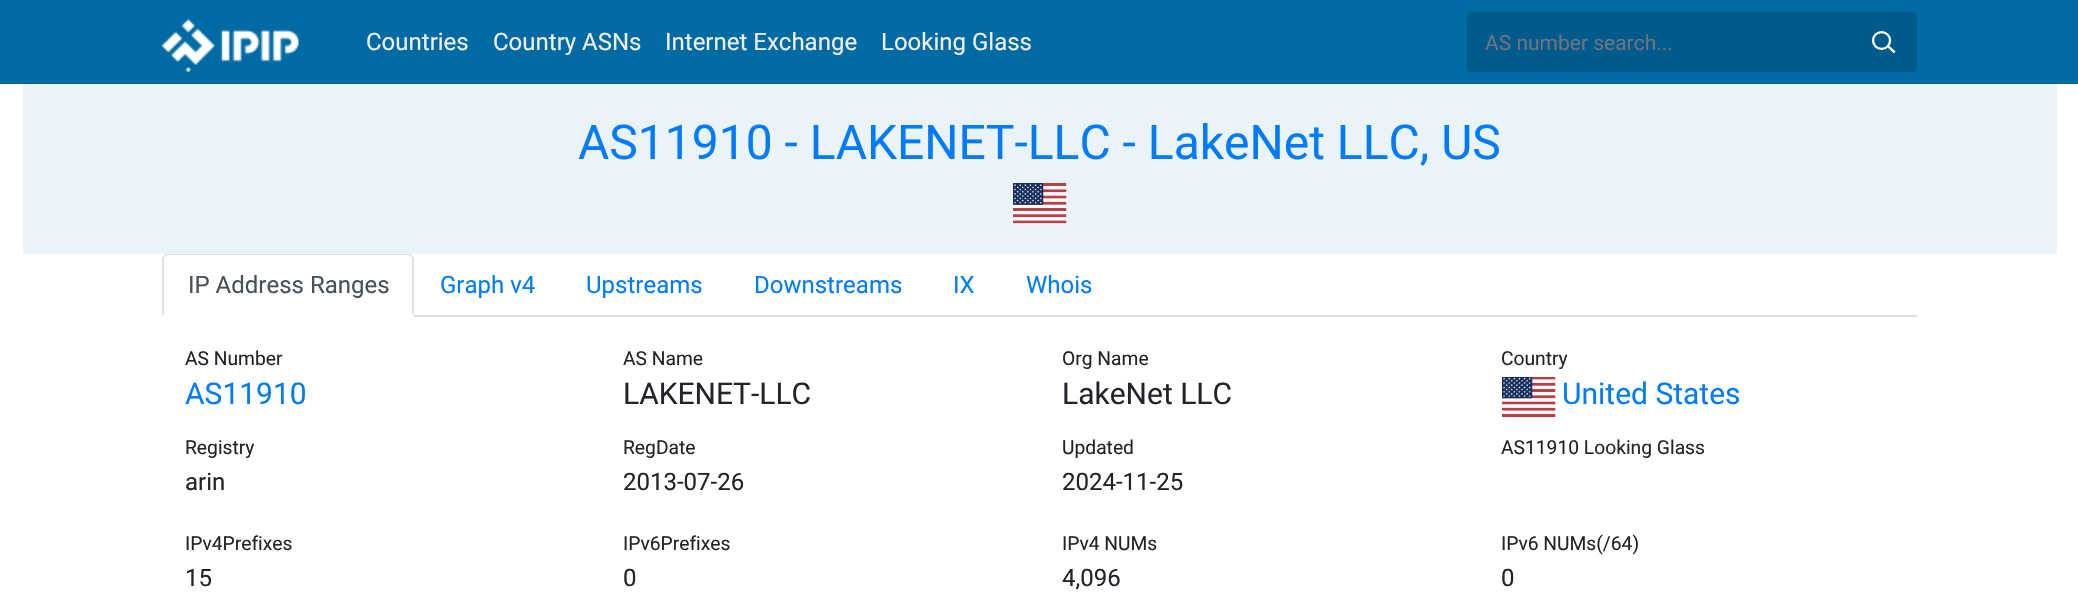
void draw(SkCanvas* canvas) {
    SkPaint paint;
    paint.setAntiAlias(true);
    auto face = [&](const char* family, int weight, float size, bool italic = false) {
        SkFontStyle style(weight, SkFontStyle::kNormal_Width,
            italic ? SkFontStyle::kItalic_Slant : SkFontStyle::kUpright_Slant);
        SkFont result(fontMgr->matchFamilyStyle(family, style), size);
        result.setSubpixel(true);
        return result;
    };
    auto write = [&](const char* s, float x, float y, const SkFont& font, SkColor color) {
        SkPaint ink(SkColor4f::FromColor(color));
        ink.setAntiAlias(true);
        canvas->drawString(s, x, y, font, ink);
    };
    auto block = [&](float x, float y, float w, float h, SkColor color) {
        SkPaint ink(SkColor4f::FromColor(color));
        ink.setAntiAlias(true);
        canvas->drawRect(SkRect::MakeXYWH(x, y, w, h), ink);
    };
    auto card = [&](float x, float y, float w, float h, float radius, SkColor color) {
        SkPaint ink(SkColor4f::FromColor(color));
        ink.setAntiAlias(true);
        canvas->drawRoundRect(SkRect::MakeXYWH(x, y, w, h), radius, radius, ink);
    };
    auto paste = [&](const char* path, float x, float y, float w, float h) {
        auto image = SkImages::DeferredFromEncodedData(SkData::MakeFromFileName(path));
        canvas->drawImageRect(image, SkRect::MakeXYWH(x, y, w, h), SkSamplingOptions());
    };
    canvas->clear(SK_ColorWHITE);
    block(0, 0, 2078, 84, SkColorSetRGB(0, 106, 165));
    paste("pic1.png", 162, 19, 137, 53);
    auto kFont1 = face("Roboto", 400, 24);
    write("Countries", 366, 50, kFont1, SkColorSetRGB(239, 239, 239));
    write("Country ASNs", 493, 50, kFont1, SkColorSetRGB(239, 239, 239));
    write("Internet Exchange", 665, 50, kFont1, SkColorSetRGB(239, 239, 239));
    write("Looking Glass", 881, 50, kFont1, SkColorSetRGB(239, 239, 239));
    card(1467, 12, 450, 60, 5, SkColorSetRGB(0, 90, 140));
    auto kFont2 = face("Roboto", 400, 21);
    write("AS number search...", 1485, 50, kFont2, SkColorSetRGB(108, 117, 125));
    paste("pic2.png", 1872, 31, 24, 23);
    block(23, 84, 2034, 170, SkColorSetRGB(234, 243, 248));
    auto kFont3 = face("Roboto", 400, 48);
    write("AS11910 - LAKENET-LLC - LakeNet LLC, US", 578, 159, kFont3, SkColorSetRGB(0, 123, 255));
    paste("pic3.png", 1013, 183, 54, 41);
    block(414, 315, 1503, 2, SkColorSetRGB(222, 226, 230));
    paint.setColor(SkColorSetRGB(222, 226, 230));
    canvas->drawPath(SkPathBuilder().moveTo(168, 254).cubicTo(167, 254, 165, 254, 164, 255).lineTo(165, 257).cubicTo(166, 256, 167, 255, 168, 255).lineTo(408, 255).cubicTo(409, 255, 410, 256, 411, 257).lineTo(412, 255).cubicTo(411, 254, 409, 254, 408, 254).close().detach(), paint);
    canvas->drawPath(SkPathBuilder().moveTo(412, 255).cubicTo(413, 256, 414, 258, 414, 260).lineTo(414, 316).lineTo(412, 314).lineTo(412, 260).cubicTo(412, 259, 412, 257, 411, 257).close().detach(), paint);
    paint.setColor(SK_ColorWHITE);
    canvas->drawPath(SkPathBuilder().moveTo(414, 316).lineTo(162, 316).lineTo(164, 314).lineTo(164, 315).lineTo(412, 315).lineTo(412, 314).close().detach(), paint);
    paint.setColor(SkColorSetRGB(222, 226, 230));
    canvas->drawPath(SkPathBuilder().moveTo(162, 260).lineTo(162, 316).lineTo(164, 314).lineTo(164, 260).cubicTo(164, 259, 164, 257, 165, 257).lineTo(164, 255).cubicTo(163, 256, 162, 258, 162, 260).close().detach(), paint);
    write("IP Address Ranges", 188, 293, kFont1, SkColorSetRGB(73, 80, 87));
    write("Graph v4", 440, 293, kFont1, SkColorSetRGB(0, 123, 255));
    write("Upstreams", 586, 293, kFont1, SkColorSetRGB(0, 123, 255));
    write("Downstreams", 754, 293, kFont1, SkColorSetRGB(0, 123, 255));
    write("IX", 953, 293, kFont1, SkColorSetRGB(0, 123, 255));
    write("Whois", 1026, 293, kFont1, SkColorSetRGB(0, 123, 255));
    auto kFont4 = face("Roboto", 400, 19.25f);
    write("AS Number", 185, 365, kFont4, SkColorSetRGB(33, 37, 41));
    auto kFont5 = face("Roboto", 400, 30);
    write("AS11910", 185, 404, kFont5, SkColorSetRGB(0, 123, 255));
    write("AS Name", 623, 365, kFont4, SkColorSetRGB(33, 37, 41));
    write("LAKENET-LLC", 623, 404, kFont5, SkColorSetRGB(33, 37, 41));
    write("Org Name", 1062, 365, kFont4, SkColorSetRGB(33, 37, 41));
    write("LakeNet LLC", 1062, 404, kFont5, SkColorSetRGB(33, 37, 41));
    write("Country", 1501, 365, kFont4, SkColorSetRGB(33, 37, 41));
    paste("pic4.png", 1502, 377, 54, 40);
    write("United States", 1562, 404, kFont5, SkColorSetRGB(0, 123, 255));
    write("Registry", 185, 454, kFont4, SkColorSetRGB(33, 37, 41));
    write("arin", 185, 490, kFont1, SkColorSetRGB(33, 37, 41));
    write("RegDate", 623, 454, kFont4, SkColorSetRGB(33, 37, 41));
    write("2013-07-26", 623, 490, kFont1, SkColorSetRGB(33, 37, 41));
    write("Updated", 1062, 454, kFont4, SkColorSetRGB(33, 37, 41));
    write("2024-11-25", 1062, 490, kFont1, SkColorSetRGB(33, 37, 41));
    write("AS11910 Looking Glass", 1501, 454, kFont4, SkColorSetRGB(33, 37, 41));
    write("IPv4Prefixes", 185, 550, kFont4, SkColorSetRGB(33, 37, 41));
    write("15", 185, 586, kFont1, SkColorSetRGB(33, 37, 41));
    write("IPv6Prefixes", 623, 550, kFont4, SkColorSetRGB(33, 37, 41));
    write("0", 623, 586, kFont1, SkColorSetRGB(33, 37, 41));
    write("IPv4 NUMs", 1062, 550, kFont4, SkColorSetRGB(33, 37, 41));
    write("4,096", 1062, 586, kFont1, SkColorSetRGB(33, 37, 41));
    write("IPv6 NUMs(/64)", 1501, 550, kFont4, SkColorSetRGB(33, 37, 41));
    write("0", 1501, 586, kFont1, SkColorSetRGB(33, 37, 41));
}
